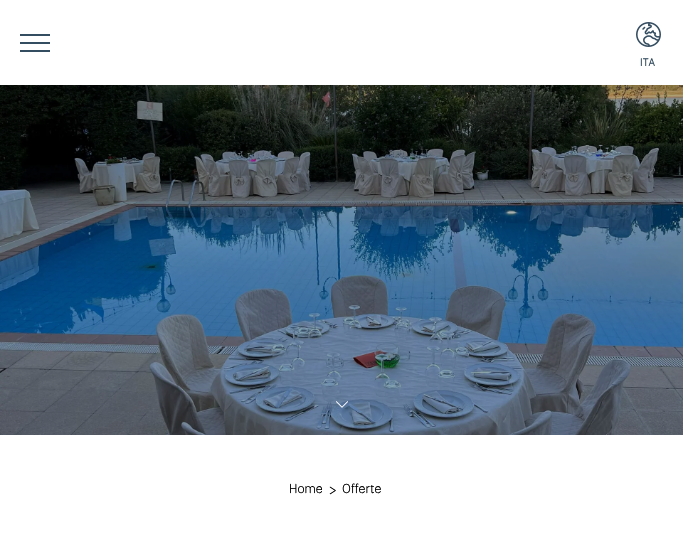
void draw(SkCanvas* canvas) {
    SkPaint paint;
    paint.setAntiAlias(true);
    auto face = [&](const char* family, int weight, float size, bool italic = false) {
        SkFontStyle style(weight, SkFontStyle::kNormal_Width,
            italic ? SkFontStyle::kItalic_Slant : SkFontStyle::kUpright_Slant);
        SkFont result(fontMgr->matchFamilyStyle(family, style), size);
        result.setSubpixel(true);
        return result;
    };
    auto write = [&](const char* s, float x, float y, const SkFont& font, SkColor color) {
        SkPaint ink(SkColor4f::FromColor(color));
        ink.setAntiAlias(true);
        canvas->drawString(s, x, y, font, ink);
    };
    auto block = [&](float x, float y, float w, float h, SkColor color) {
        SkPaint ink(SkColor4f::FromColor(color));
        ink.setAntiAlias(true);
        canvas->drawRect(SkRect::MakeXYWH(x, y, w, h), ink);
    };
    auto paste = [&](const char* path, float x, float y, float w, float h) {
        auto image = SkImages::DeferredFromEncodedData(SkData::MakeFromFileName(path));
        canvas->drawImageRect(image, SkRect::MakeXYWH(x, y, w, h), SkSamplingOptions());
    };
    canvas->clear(SK_ColorWHITE);
    block(20, 34, 30, 2, SkColorSetRGB(52, 77, 96));
    block(20, 42, 30, 2, SkColorSetRGB(52, 77, 96));
    block(20, 50, 30, 2, SkColorSetRGB(52, 77, 96));
    paste("pic1.png", 636, 22, 25, 25);
    auto kFont1 = face("National Park", 400, 11);
    write("ITA", 640, 66, kFont1, SkColorSetRGB(52, 77, 96));
    paste("pic2.png", 0, 85, 683, 350);
    paste("pic3.png", 336, 401, 12, 7);
    auto kFont2 = face("National Park", 300, 13);
    write("Home", 289, 493, kFont2, SK_ColorBLACK);
    write(">", 329, 495, kFont2, SK_ColorBLACK);
    write("Offerte", 342, 493, kFont2, SK_ColorBLACK);
}
